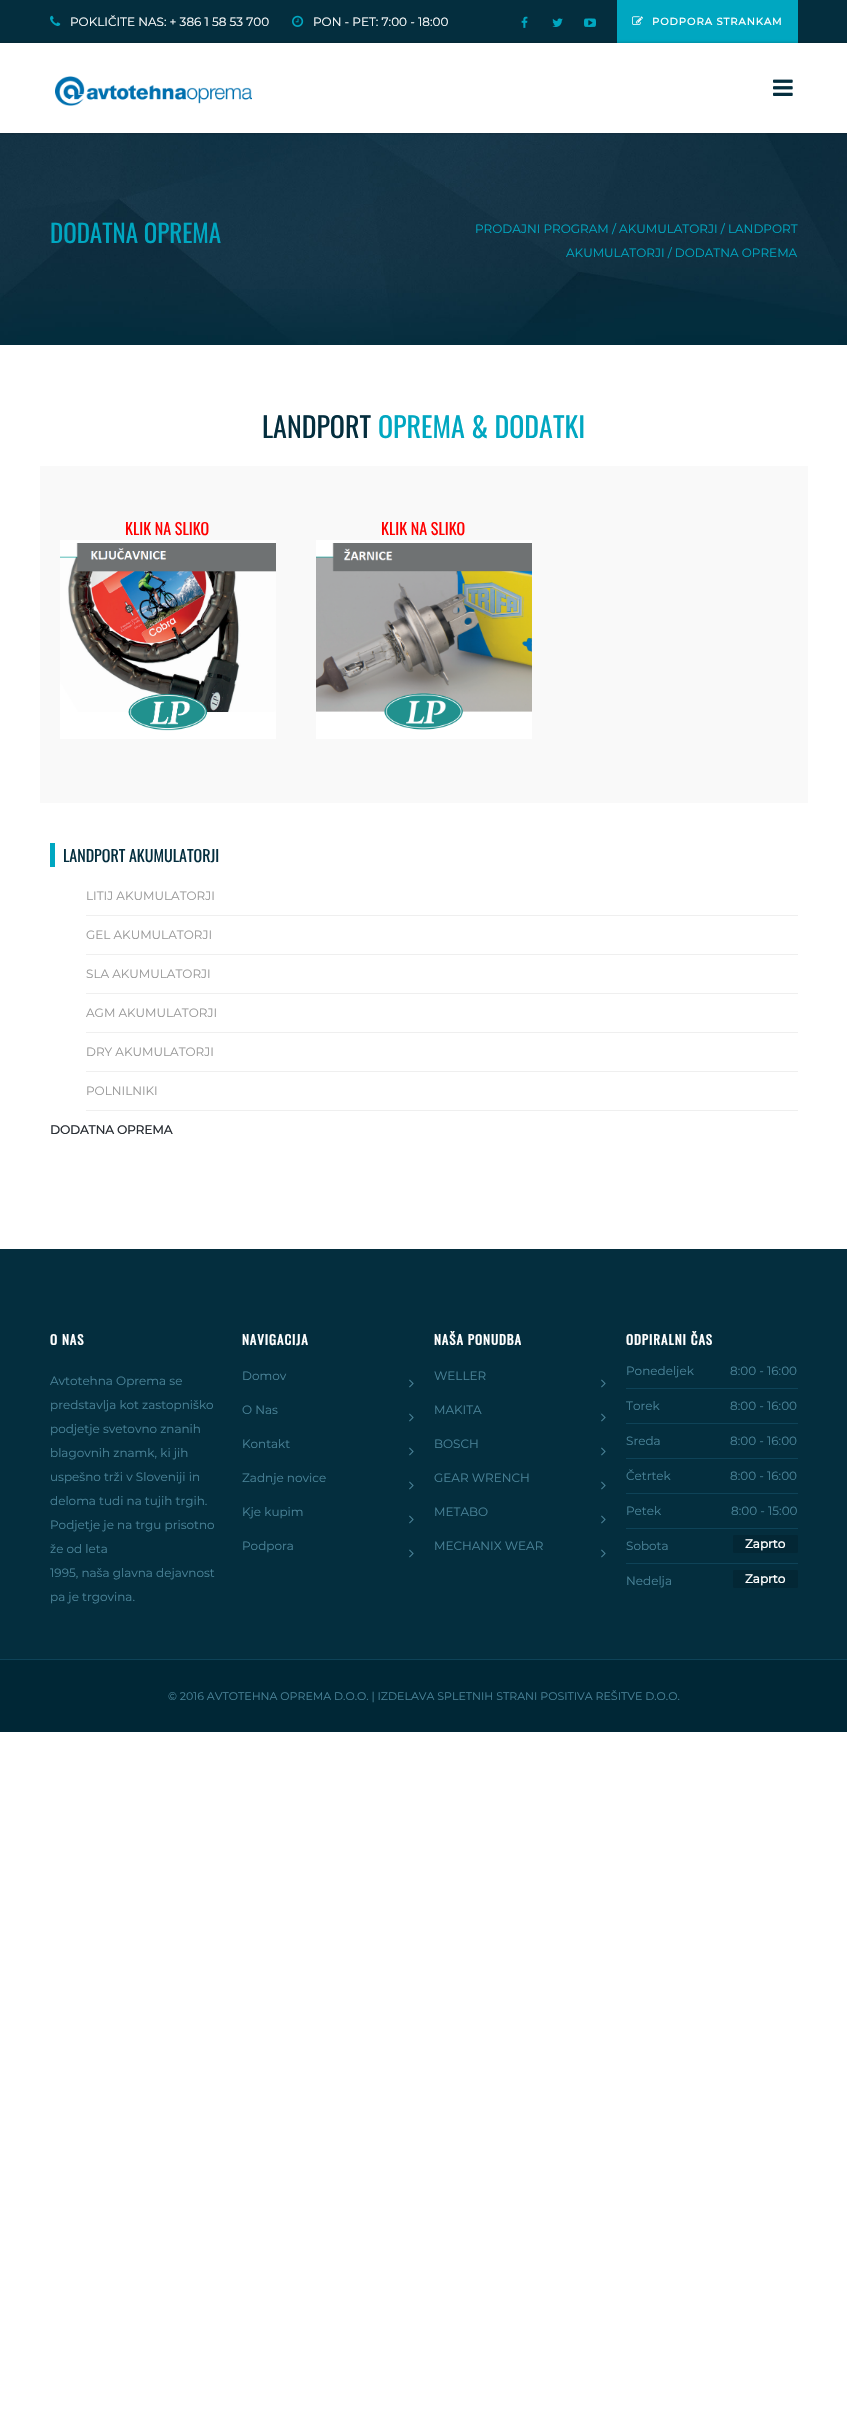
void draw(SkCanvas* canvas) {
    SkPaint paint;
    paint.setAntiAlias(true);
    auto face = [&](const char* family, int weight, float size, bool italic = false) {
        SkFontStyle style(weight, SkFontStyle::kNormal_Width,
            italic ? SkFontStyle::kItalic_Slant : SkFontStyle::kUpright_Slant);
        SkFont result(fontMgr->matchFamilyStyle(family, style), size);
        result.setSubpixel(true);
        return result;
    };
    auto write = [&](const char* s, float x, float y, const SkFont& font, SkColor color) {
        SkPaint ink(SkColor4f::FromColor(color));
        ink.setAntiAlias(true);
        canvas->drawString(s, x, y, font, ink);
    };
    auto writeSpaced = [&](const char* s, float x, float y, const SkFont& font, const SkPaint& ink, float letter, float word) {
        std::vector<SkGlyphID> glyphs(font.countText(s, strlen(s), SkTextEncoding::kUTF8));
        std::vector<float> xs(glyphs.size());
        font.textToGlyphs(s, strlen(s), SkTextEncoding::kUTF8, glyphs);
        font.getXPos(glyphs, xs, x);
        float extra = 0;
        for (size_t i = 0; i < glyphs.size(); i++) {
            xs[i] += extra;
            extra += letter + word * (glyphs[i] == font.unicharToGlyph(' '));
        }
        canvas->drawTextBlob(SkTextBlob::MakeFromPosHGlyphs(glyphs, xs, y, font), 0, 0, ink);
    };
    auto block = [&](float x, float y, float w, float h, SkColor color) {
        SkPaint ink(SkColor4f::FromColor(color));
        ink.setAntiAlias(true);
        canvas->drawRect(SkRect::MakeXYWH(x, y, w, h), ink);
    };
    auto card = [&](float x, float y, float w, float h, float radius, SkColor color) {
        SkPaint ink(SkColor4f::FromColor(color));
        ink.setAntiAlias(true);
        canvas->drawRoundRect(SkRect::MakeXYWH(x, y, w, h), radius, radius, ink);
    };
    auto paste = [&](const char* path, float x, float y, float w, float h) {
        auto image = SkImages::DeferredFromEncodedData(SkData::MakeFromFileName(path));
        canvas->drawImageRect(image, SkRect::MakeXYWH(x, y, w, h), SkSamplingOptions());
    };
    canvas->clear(SK_ColorWHITE);
    block(0, 0, 847, 43, SkColorSetRGB(4, 46, 62));
    paste("pic1.png", 50, 15, 11, 11);
    auto kFont1 = face("Montserrat", 100, 12);
    write("POKLIČITE NAS: + 386 1 58 53 700", 70, 26, kFont1, SK_ColorWHITE);
    paste("pic2.png", 292, 15, 12, 12);
    write("PON - PET: 7:00 - 18:00", 313, 26, kFont1, SK_ColorWHITE);
    paste("pic3.png", 521, 16, 7, 12);
    paste("pic4.png", 552, 18, 11, 9);
    paste("pic5.png", 584, 18, 12, 9);
    block(617, 0, 181, 43, SkColorSetRGB(0, 167, 193));
    paste("pic6.png", 632, 16, 11, 9);
    auto kFont2 = face("Montserrat", 700, 10);
    paint.setColor(SK_ColorWHITE);
    writeSpaced("PODPORA STRANKAM", 652, 25, kFont2, paint, 1, 0);
    paste("pic9.png", 0, 133, 847, 212);
    canvas->save();
    canvas->clipPath(SkPathBuilder(SkPathFillType::kEvenOdd).moveTo(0, 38).lineTo(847, 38).lineTo(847, 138).lineTo(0, 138).close().moveTo(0, 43).lineTo(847, 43).lineTo(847, 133).lineTo(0, 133).close().detach(), true);
    paint.setColor(SkColorSetARGB(41, 0, 0, 0));
    paint.setMaskFilter(SkMaskFilter::MakeBlur(kNormal_SkBlurStyle, 1));
    canvas->drawRect(SkRect::MakeXYWH(-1, 42, 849, 92), paint);
    paint.setMaskFilter(nullptr);
    canvas->restore();
    paste("pic7.png", 55, 76, 197, 30);
    paste("pic8.png", 773, 79, 20, 17);
    auto kFont3 = face("Oswald", 400, 25);
    write("DODATNA OPREMA", 50, 243, kFont3, SkColorSetRGB(0, 167, 193));
    write("PRODAJNI PROGRAM / AKUMULATORJI / LANDPORT", 475, 233, kFont1, SkColorSetRGB(0, 167, 193));
    write("AKUMULATORJI / DODATNA OPREMA", 566, 257, kFont1, SkColorSetRGB(0, 167, 193));
    auto kFont4 = face("Oswald", 400, 28);
    write("LANDPORT", 262, 438, kFont4, SkColorSetRGB(4, 46, 62));
    write("OPREMA & DODATKI", 378, 438, kFont4, SkColorSetRGB(0, 167, 193));
    block(40, 466, 768, 337, SkColorSetRGB(249, 249, 249));
    auto kFont5 = face("Oswald", 400, 16);
    write("KLIK NA SLIKO", 125, 535, kFont5, SkColorSetRGB(255, 0, 0));
    paste("pic10.png", 60, 540, 216, 199);
    write("KLIK NA SLIKO", 381, 535, kFont5, SkColorSetRGB(255, 0, 0));
    paste("pic11.png", 316, 540, 216, 199);
    block(50, 843, 5, 24, SkColorSetRGB(0, 167, 193));
    write("LANDPORT AKUMULATORJI", 63, 862, kFont5, SkColorSetRGB(4, 46, 62));
    block(86, 915, 712, 1, SkColorSetRGB(239, 239, 239));
    write("LITIJ AKUMULATORJI", 86, 900, kFont1, SkColorSetRGB(153, 153, 153));
    block(86, 954, 712, 1, SkColorSetRGB(239, 239, 239));
    write("GEL AKUMULATORJI", 86, 939, kFont1, SkColorSetRGB(153, 153, 153));
    block(86, 993, 712, 1, SkColorSetRGB(239, 239, 239));
    write("SLA AKUMULATORJI", 86, 978, kFont1, SkColorSetRGB(153, 153, 153));
    block(86, 1032, 712, 1, SkColorSetRGB(239, 239, 239));
    write("AGM AKUMULATORJI", 86, 1017, kFont1, SkColorSetRGB(153, 153, 153));
    block(86, 1071, 712, 1, SkColorSetRGB(239, 239, 239));
    write("DRY AKUMULATORJI", 86, 1056, kFont1, SkColorSetRGB(153, 153, 153));
    block(86, 1110, 712, 1, SkColorSetRGB(239, 239, 239));
    write("POLNILNIKI", 86, 1095, kFont1, SkColorSetRGB(153, 153, 153));
    auto kFont6 = face("Montserrat", 700, 12);
    write("DODATNA OPREMA", 50, 1134, kFont6, SkColorSetRGB(42, 47, 53));
    block(0, 1249, 847, 410, SkColorSetRGB(4, 46, 62));
    auto kFont7 = face("Oswald", 700, 13);
    paint.setColor(SK_ColorWHITE);
    writeSpaced("O NAS", 50, 1345, kFont7, paint, 1, 0);
    write("Avtotehna Oprema se", 50, 1385, kFont1, SkColorSetRGB(73, 130, 151));
    write("predstavlja kot zastopniško", 50, 1409, kFont1, SkColorSetRGB(73, 130, 151));
    write("podjetje svetovno znanih", 50, 1433, kFont1, SkColorSetRGB(73, 130, 151));
    write("blagovnih znamk, ki jih", 50, 1457, kFont1, SkColorSetRGB(73, 130, 151));
    write("uspešno trži v Sloveniji in", 50, 1481, kFont1, SkColorSetRGB(73, 130, 151));
    write("deloma tudi na tujih trgih.", 50, 1505, kFont1, SkColorSetRGB(73, 130, 151));
    write("Podjetje je na trgu prisotno", 50, 1529, kFont1, SkColorSetRGB(73, 130, 151));
    write("že od leta", 50, 1553, kFont1, SkColorSetRGB(73, 130, 151));
    write("1995, naša glavna dejavnost", 50, 1577, kFont1, SkColorSetRGB(73, 130, 151));
    write("pa je trgovina.", 50, 1601, kFont1, SkColorSetRGB(73, 130, 151));
    writeSpaced("NAVIGACIJA", 242, 1345, kFont7, paint, 1, 0);
    write("Domov", 242, 1380, kFont1, SkColorSetRGB(73, 130, 151));
    paste("pic12.png", 409, 1379, 5, 9);
    write("O Nas", 242, 1414, kFont1, SkColorSetRGB(73, 130, 151));
    paste("pic12.png", 409, 1413, 5, 9);
    write("Kontakt", 242, 1448, kFont1, SkColorSetRGB(73, 130, 151));
    paste("pic12.png", 409, 1447, 5, 9);
    write("Zadnje novice", 242, 1482, kFont1, SkColorSetRGB(73, 130, 151));
    paste("pic12.png", 409, 1481, 5, 9);
    write("Kje kupim", 242, 1516, kFont1, SkColorSetRGB(73, 130, 151));
    paste("pic12.png", 409, 1515, 5, 9);
    write("Podpora", 242, 1550, kFont1, SkColorSetRGB(73, 130, 151));
    paste("pic12.png", 409, 1549, 5, 9);
    writeSpaced("NAŠA PONUDBA", 434, 1345, kFont7, paint, 1, 0);
    write("WELLER", 434, 1380, kFont1, SkColorSetRGB(73, 130, 151));
    paste("pic12.png", 601, 1379, 5, 9);
    write("MAKITA", 434, 1414, kFont1, SkColorSetRGB(73, 130, 151));
    paste("pic12.png", 601, 1413, 5, 9);
    write("BOSCH", 434, 1448, kFont1, SkColorSetRGB(73, 130, 151));
    paste("pic12.png", 601, 1447, 5, 9);
    write("GEAR WRENCH", 434, 1482, kFont1, SkColorSetRGB(73, 130, 151));
    paste("pic12.png", 601, 1481, 5, 9);
    write("METABO", 434, 1516, kFont1, SkColorSetRGB(73, 130, 151));
    paste("pic12.png", 601, 1515, 5, 9);
    write("MECHANIX WEAR", 434, 1550, kFont1, SkColorSetRGB(73, 130, 151));
    paste("pic12.png", 601, 1549, 5, 9);
    writeSpaced("ODPIRALNI ČAS", 626, 1345, kFont7, paint, 1, 0);
    block(626, 1388, 172, 1, SkColorSetRGB(14, 67, 88));
    write("Ponedeljek", 626, 1375, kFont1, SkColorSetRGB(73, 130, 151));
    write("8:00 - 16:00", 730, 1375, kFont1, SkColorSetRGB(73, 130, 151));
    block(626, 1423, 172, 1, SkColorSetRGB(14, 67, 88));
    write("Torek", 626, 1410, kFont1, SkColorSetRGB(73, 130, 151));
    write("8:00 - 16:00", 730, 1410, kFont1, SkColorSetRGB(73, 130, 151));
    block(626, 1458, 172, 1, SkColorSetRGB(14, 67, 88));
    write("Sreda", 626, 1445, kFont1, SkColorSetRGB(73, 130, 151));
    write("8:00 - 16:00", 730, 1445, kFont1, SkColorSetRGB(73, 130, 151));
    block(626, 1493, 172, 1, SkColorSetRGB(14, 67, 88));
    write("Četrtek", 626, 1480, kFont1, SkColorSetRGB(73, 130, 151));
    write("8:00 - 16:00", 730, 1480, kFont1, SkColorSetRGB(73, 130, 151));
    block(626, 1528, 172, 1, SkColorSetRGB(14, 67, 88));
    write("Petek", 626, 1515, kFont1, SkColorSetRGB(73, 130, 151));
    write("8:00 - 15:00", 731, 1515, kFont1, SkColorSetRGB(73, 130, 151));
    block(626, 1563, 172, 1, SkColorSetRGB(14, 67, 88));
    write("Sobota", 626, 1550, kFont1, SkColorSetRGB(73, 130, 151));
    card(733, 1535, 65, 18, 1, SkColorSetRGB(3, 39, 53));
    write("Zaprto", 745, 1548, kFont6, SK_ColorWHITE);
    write("Nedelja", 626, 1585, kFont1, SkColorSetRGB(73, 130, 151));
    card(733, 1570, 65, 18, 1, SkColorSetRGB(3, 39, 53));
    write("Zaprto", 745, 1583, kFont6, SK_ColorWHITE);
    block(0, 1660, 847, 72, SkColorSetRGB(0, 39, 54));
    block(0, 1659, 847, 1, SkColorSetRGB(14, 67, 88));
    auto kFont8 = face("Montserrat", 100, 11);
    write("© 2016 AVTOTEHNA OPREMA D.O.O. | IZDELAVA SPLETNIH STRANI POSITIVA REŠITVE D.O.O.", 168, 1700, kFont8, SkColorSetRGB(73, 130, 151));
}
